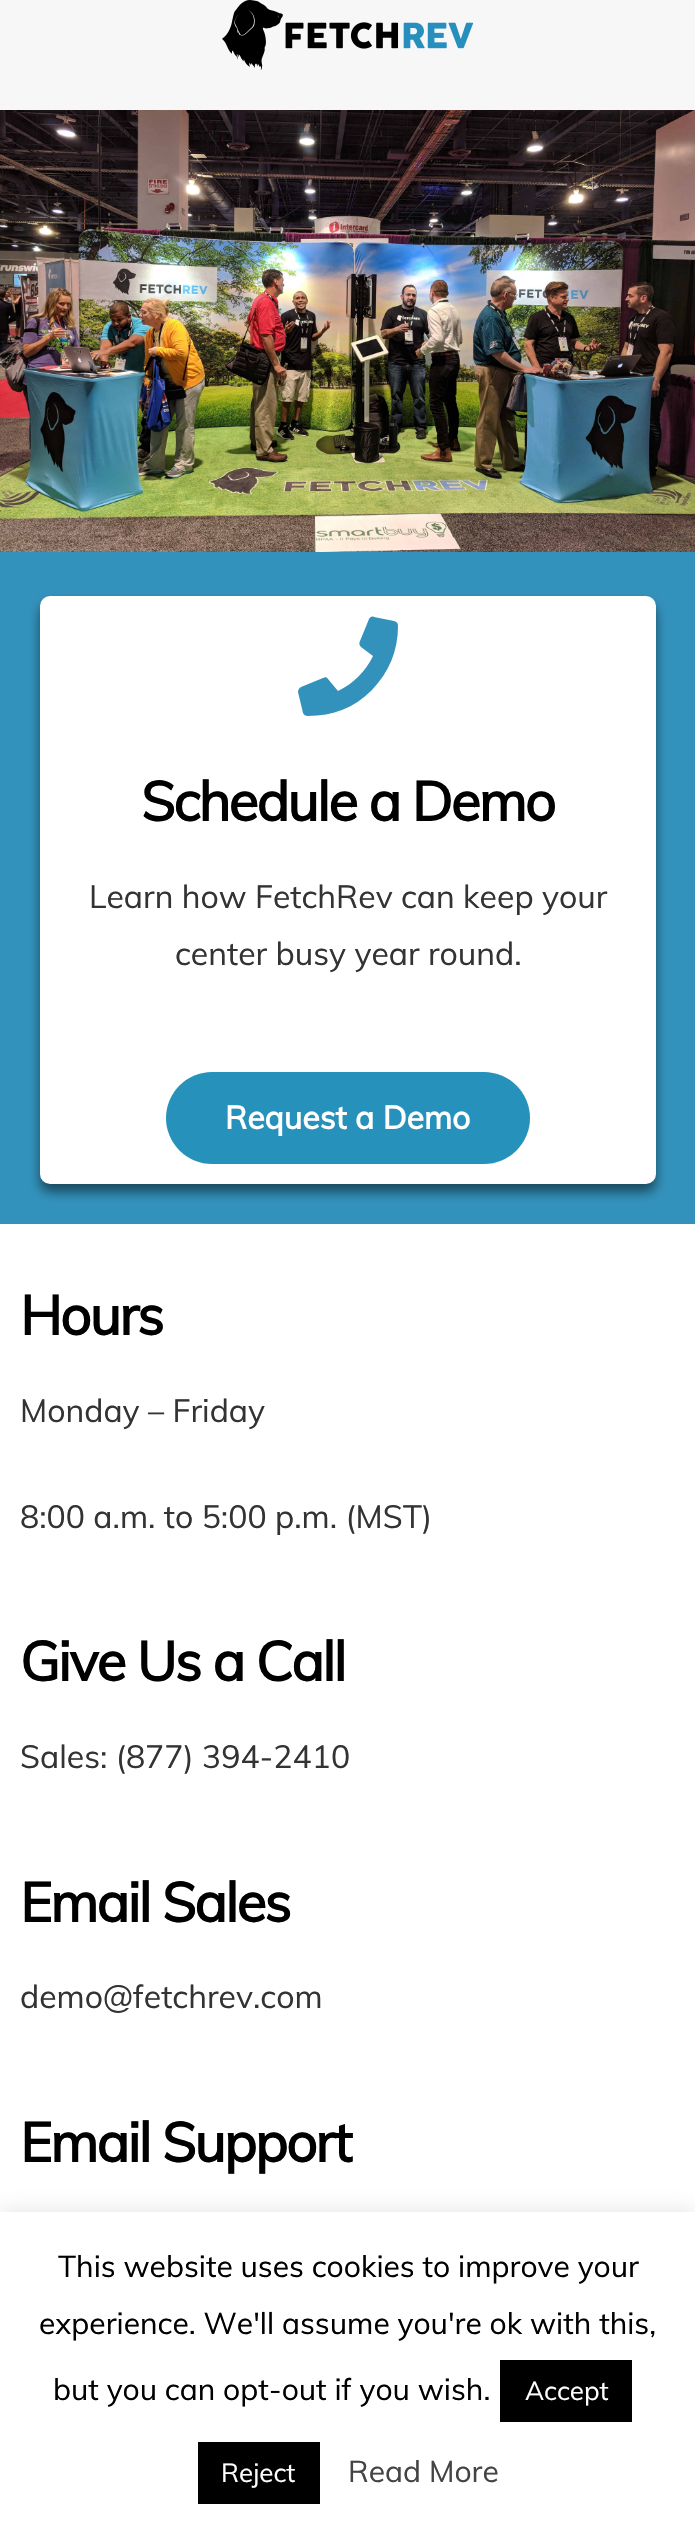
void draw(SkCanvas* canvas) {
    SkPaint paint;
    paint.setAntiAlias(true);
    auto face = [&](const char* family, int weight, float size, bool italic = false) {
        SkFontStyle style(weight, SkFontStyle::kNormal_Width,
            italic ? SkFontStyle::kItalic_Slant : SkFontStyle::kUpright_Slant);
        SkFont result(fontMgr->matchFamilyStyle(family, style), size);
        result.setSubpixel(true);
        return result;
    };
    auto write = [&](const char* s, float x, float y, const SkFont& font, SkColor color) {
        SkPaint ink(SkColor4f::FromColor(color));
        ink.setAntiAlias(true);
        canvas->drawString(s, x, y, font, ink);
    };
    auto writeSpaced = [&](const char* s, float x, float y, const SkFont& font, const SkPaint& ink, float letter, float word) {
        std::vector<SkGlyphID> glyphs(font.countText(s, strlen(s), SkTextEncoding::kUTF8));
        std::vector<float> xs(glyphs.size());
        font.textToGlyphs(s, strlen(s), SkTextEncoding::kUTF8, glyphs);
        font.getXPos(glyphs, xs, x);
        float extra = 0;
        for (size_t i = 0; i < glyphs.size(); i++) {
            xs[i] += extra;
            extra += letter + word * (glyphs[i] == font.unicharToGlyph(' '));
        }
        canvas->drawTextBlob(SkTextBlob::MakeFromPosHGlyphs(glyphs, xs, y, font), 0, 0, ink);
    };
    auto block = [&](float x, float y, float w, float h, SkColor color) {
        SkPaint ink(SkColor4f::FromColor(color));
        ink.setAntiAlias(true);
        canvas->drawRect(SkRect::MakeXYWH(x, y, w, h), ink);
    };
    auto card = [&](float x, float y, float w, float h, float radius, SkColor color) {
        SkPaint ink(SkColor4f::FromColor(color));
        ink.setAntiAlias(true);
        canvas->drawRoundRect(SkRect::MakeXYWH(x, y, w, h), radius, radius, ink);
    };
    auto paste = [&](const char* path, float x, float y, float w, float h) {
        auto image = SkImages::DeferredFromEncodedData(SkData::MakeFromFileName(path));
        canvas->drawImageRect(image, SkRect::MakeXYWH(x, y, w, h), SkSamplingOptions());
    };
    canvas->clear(SK_ColorWHITE);
    block(0, 0, 695, 110, SkColorSetRGB(247, 247, 247));
    paste("pic1.png", 222, 0, 252, 70);
    paste("pic2.png", 0, 110, 695, 442);
    block(0, 552, 695, 672, SkColorSetRGB(51, 146, 188));
    paint.setColor(SkColorSetARGB(128, 0, 0, 0));
    paint.setMaskFilter(SkMaskFilter::MakeBlur(kNormal_SkBlurStyle, 6));
    canvas->drawRoundRect(SkRect::MakeXYWH(40, 604, 616, 588), 10, 10, paint);
    paint.setMaskFilter(nullptr);
    card(40, 596, 616, 588, 10, SK_ColorWHITE);
    paint.setColor(SkColorSetRGB(51, 146, 188));
    canvas->drawPath(SkPathBuilder().moveTo(394, 621).cubicTo(397, 622, 398, 623, 398, 626).cubicTo(398, 651, 389, 672, 372, 690).cubicTo(354, 708, 333, 716, 308, 716).cubicTo(305, 716, 304, 715, 303, 713).lineTo(298, 692).cubicTo(298, 690, 299, 688, 301, 687).lineTo(323, 678).cubicTo(325, 677, 327, 677, 328, 679).lineTo(338, 691).cubicTo(353, 684, 366, 671, 373, 656).lineTo(361, 647).cubicTo(359, 645, 359, 643, 360, 641).lineTo(369, 619).cubicTo(370, 617, 372, 616, 374, 617).close().detach(), paint);
    auto kFont1 = face("Muli", 700, 54.75f);
    paint.setColor(SK_ColorBLACK);
    writeSpaced("Schedule a Demo", 141, 821, kFont1, paint, -1.9f, 0);
    auto kFont2 = face("Muli", 400, 32);
    write("Learn how FetchRev can keep your", 89, 908, kFont2, SkColorSetRGB(51, 51, 51));
    write("center busy year round.", 175, 965, kFont2, SkColorSetRGB(51, 51, 51));
    card(166, 1072, 364, 92, 46, SkColorSetRGB(38, 146, 188));
    auto kFont3 = face("Muli", 700, 32);
    write("Request a Demo", 225, 1129, kFont3, SK_ColorWHITE);
    writeSpaced("Hours", 20, 1335, kFont1, paint, -1.9f, 0);
    write("Monday – Friday", 20, 1422, kFont2, SkColorSetRGB(51, 51, 51));
    write("8:00 a.m. to 5:00 p.m. (MST)", 20, 1528, kFont2, SkColorSetRGB(51, 51, 51));
    writeSpaced("Give Us a Call", 20, 1681, kFont1, paint, -1.9f, 0);
    write("Sales: (877) 394-2410", 20, 1768, kFont2, SkColorSetRGB(51, 51, 51));
    writeSpaced("Email Sales", 20, 1922, kFont1, paint, -1.9f, 0);
    write("demo@fetchrev.com", 20, 2008, kFont2, SkColorSetRGB(51, 51, 51));
    writeSpaced("Email Support", 20, 2162, kFont1, paint, -1.9f, 0);
    paint.setColor(SkColorSetARGB(77, 172, 171, 171));
    paint.setMaskFilter(SkMaskFilter::MakeBlur(kNormal_SkBlurStyle, 10));
    canvas->drawRect(SkRect::MakeXYWH(0, 2210, 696, 326), paint);
    paint.setMaskFilter(nullptr);
    block(0, 2212, 695, 326, SK_ColorWHITE);
    auto kFont4 = face("Muli", 400, 30);
    write("This website uses cookies to improve your", 58, 2277, kFont4, SK_ColorBLACK);
    write("experience. We'll assume you're ok with this,", 39, 2334, kFont4, SK_ColorBLACK);
    write("but you can opt-out if you wish.", 53, 2400, kFont4, SK_ColorBLACK);
    block(500, 2360, 132, 62, SK_ColorBLACK);
    auto kFont5 = face("Muli", 400, 26);
    write("Accept", 525, 2400, kFont5, SK_ColorWHITE);
    block(198, 2442, 122, 62, SK_ColorBLACK);
    write("Reject", 221, 2482, kFont5, SK_ColorWHITE);
    write("Read More", 348, 2482, kFont4, SkColorSetRGB(68, 68, 68));
}
